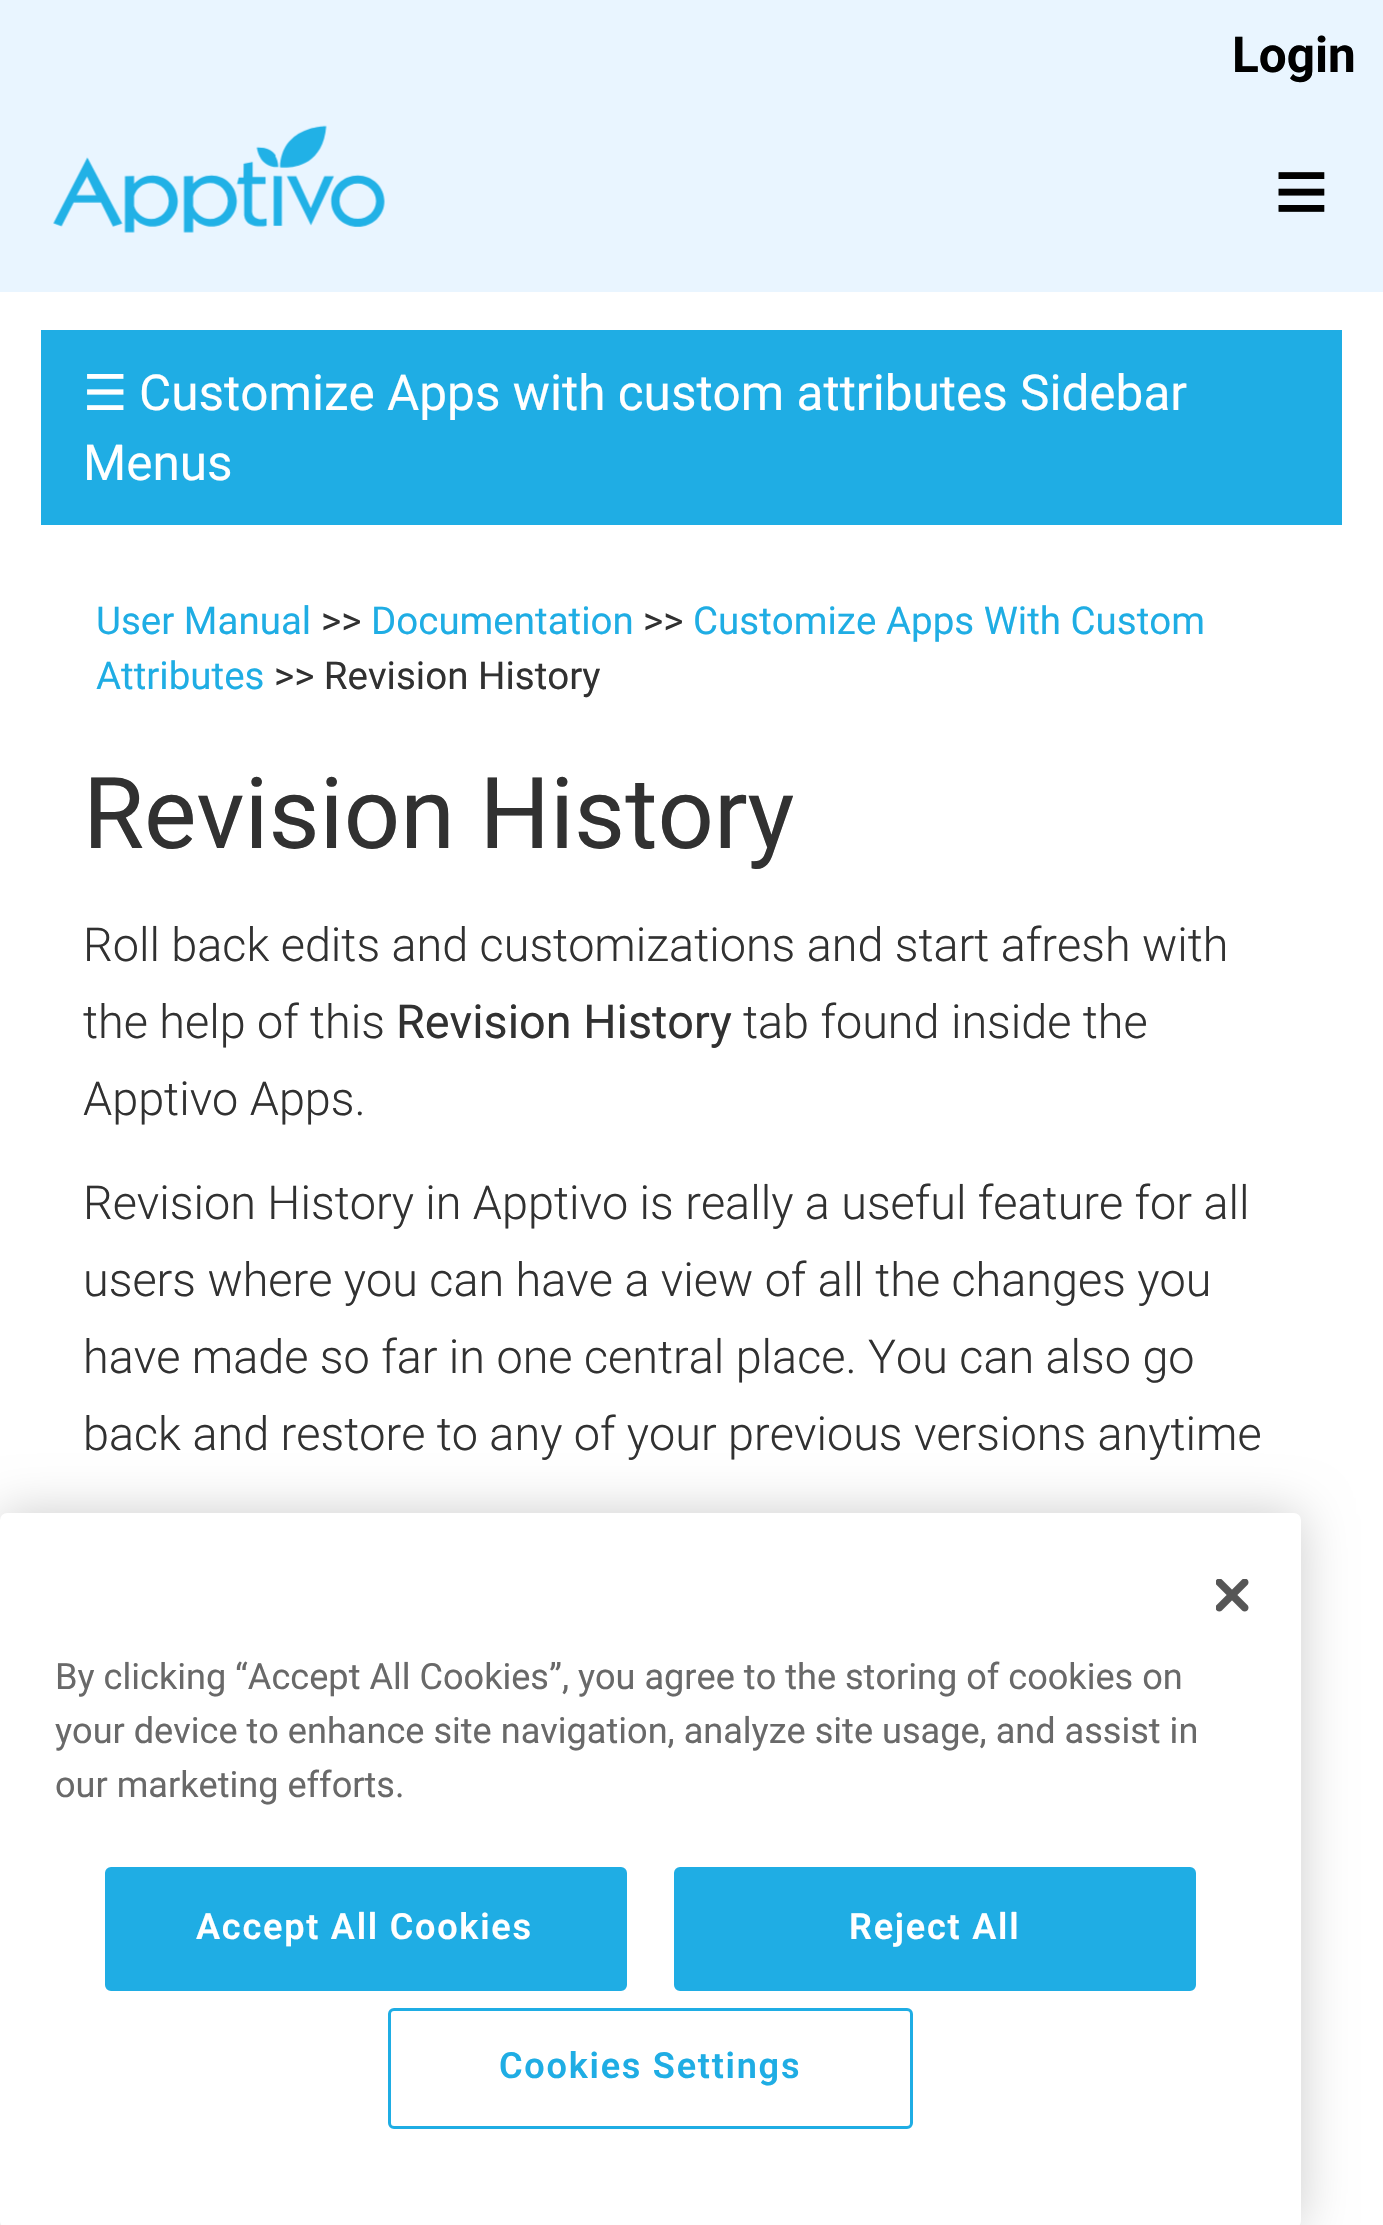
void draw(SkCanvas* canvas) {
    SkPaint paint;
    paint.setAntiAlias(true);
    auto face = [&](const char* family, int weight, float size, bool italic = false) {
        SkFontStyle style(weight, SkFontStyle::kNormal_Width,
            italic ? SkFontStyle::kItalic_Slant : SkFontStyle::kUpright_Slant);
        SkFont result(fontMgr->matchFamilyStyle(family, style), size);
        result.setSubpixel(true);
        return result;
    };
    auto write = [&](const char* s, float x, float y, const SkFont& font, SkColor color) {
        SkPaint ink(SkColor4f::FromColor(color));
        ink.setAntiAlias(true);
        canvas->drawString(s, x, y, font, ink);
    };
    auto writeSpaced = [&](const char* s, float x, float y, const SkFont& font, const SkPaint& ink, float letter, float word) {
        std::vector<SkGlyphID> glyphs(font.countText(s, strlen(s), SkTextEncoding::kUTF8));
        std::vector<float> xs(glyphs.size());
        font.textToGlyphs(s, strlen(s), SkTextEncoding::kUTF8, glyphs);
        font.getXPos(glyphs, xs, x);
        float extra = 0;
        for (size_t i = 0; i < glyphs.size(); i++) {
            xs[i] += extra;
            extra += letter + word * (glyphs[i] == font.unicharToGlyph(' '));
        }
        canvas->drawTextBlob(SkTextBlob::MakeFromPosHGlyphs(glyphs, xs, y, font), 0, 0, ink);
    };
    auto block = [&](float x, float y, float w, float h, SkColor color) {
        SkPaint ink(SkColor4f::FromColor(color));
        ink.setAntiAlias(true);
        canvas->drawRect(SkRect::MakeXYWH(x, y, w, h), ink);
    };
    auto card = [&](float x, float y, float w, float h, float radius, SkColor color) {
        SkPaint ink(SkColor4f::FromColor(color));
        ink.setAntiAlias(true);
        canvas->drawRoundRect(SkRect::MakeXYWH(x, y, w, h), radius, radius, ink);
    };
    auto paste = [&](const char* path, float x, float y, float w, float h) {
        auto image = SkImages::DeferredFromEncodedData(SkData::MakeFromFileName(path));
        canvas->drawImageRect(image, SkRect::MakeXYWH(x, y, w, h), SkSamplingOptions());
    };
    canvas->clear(SK_ColorWHITE);
    block(0, 0, 1383, 292, SkColorSetRGB(233, 245, 255));
    auto kFont1 = face("Roboto", 700, 49.5f);
    write("Login", 1232, 72, kFont1, SK_ColorBLACK);
    paste("pic1.png", 53, 125, 332, 108);
    auto kFont2 = face("Liberation Sans", 400, 94);
    write("≡", 1274, 223, kFont2, SK_ColorBLACK);
    block(41, 330, 1301, 195, SkColorSetRGB(31, 173, 228));
    auto kFont3 = face("DejaVu Sans", 400, 49.5f);
    write("☰", 83, 410, kFont3, SK_ColorWHITE);
    auto kFont4 = face("Roboto", 400, 49.5f);
    write("Customize Apps with custom attributes Sidebar", 139, 410, kFont4, SK_ColorWHITE);
    write("Menus", 83, 480, kFont4, SK_ColorWHITE);
    auto kFont5 = face("Roboto", 400, 38.5f);
    write("User Manual", 96, 634, kFont5, SkColorSetRGB(31, 173, 228));
    write(">>", 321, 634, kFont5, SkColorSetRGB(49, 49, 49));
    write("Documentation", 371, 634, kFont5, SkColorSetRGB(31, 173, 228));
    write(">>", 643, 634, kFont5, SkColorSetRGB(49, 49, 49));
    write("Customize Apps With Custom", 693, 634, kFont5, SkColorSetRGB(31, 173, 228));
    write("Attributes", 96, 689, kFont5, SkColorSetRGB(31, 173, 228));
    write(">> Revision History", 274, 689, kFont5, SkColorSetRGB(49, 49, 49));
    auto kFont6 = face("Roboto", 400, 99);
    write("Revision History", 83, 848, kFont6, SkColorSetRGB(49, 49, 49));
    auto kFont7 = face("Roboto", 300, 46.75f);
    write("Roll back edits and customizations and start afresh with", 83, 961, kFont7, SkColorSetRGB(49, 49, 49));
    write("the help of this", 83, 1038, kFont7, SkColorSetRGB(49, 49, 49));
    auto kFont8 = face("Roboto", 400, 46.75f);
    write("Revision History", 396, 1038, kFont8, SkColorSetRGB(49, 49, 49));
    write("tab found inside the", 743, 1038, kFont7, SkColorSetRGB(49, 49, 49));
    write("Apptivo Apps.", 83, 1115, kFont7, SkColorSetRGB(49, 49, 49));
    write("Revision History in Apptivo is really a useful feature for all", 83, 1219, kFont7, SkColorSetRGB(49, 49, 49));
    write("users where you can have a view of all the changes you", 83, 1296, kFont7, SkColorSetRGB(49, 49, 49));
    write("have made so far in one central place. You can also go", 83, 1373, kFont7, SkColorSetRGB(49, 49, 49));
    write("back and restore to any of your previous versions anytime", 83, 1450, kFont7, SkColorSetRGB(49, 49, 49));
    paint.setColor(SkColorSetARGB(51, 0, 0, 0));
    paint.setMaskFilter(SkMaskFilter::MakeBlur(kNormal_SkBlurStyle, 25));
    canvas->drawRoundRect(SkRect::MakeXYWH(0, 1513, 1301, 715), 7, 7, paint);
    paint.setMaskFilter(nullptr);
    card(0, 1513, 1301, 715, 7, SK_ColorWHITE);
    paste("pic2.png", 1216, 1579, 33, 33);
    auto kFont9 = face("Roboto", 400, 36.1f);
    write("By clicking “Accept All Cookies”, you agree to the storing of cookies on", 55, 1689, kFont9, SkColorSetRGB(105, 105, 105));
    write("your device to enhance site navigation, analyze site usage, and assist in", 55, 1743, kFont9, SkColorSetRGB(105, 105, 105));
    write("our marketing efforts.", 55, 1797, kFont9, SkColorSetRGB(105, 105, 105));
    paint.setColor(SkColorSetRGB(31, 173, 228));
    canvas->drawRoundRect(SkRect::MakeXYWH(106.5f, 1868.5f, 519, 121), 4.5f, 4.5f, paint);
    paint.setStyle(SkPaint::kStroke_Style);
    paint.setStrokeWidth(3);
    canvas->drawRoundRect(SkRect::MakeXYWH(106.5f, 1868.5f, 519, 121), 4.5f, 4.5f, paint);
    auto kFont10 = face("Roboto", 600, 36.1f);
    paint.setStyle(SkPaint::kFill_Style);
    paint.setColor(SK_ColorWHITE);
    writeSpaced("Accept All Cookies", 196, 1939, kFont10, paint, 1.75f, 0);
    paint.setColor(SkColorSetRGB(31, 173, 228));
    canvas->drawRoundRect(SkRect::MakeXYWH(675.5f, 1868.5f, 519, 121), 4.5f, 4.5f, paint);
    paint.setStyle(SkPaint::kStroke_Style);
    canvas->drawRoundRect(SkRect::MakeXYWH(675.5f, 1868.5f, 519, 121), 4.5f, 4.5f, paint);
    paint.setStyle(SkPaint::kFill_Style);
    paint.setColor(SK_ColorWHITE);
    writeSpaced("Reject All", 849, 1939, kFont10, paint, 1.75f, 0);
    paint.setStyle(SkPaint::kStroke_Style);
    paint.setColor(SkColorSetRGB(31, 173, 228));
    canvas->drawRoundRect(SkRect::MakeXYWH(389.5f, 2009.5f, 522, 118), 4.5f, 4.5f, paint);
    paint.setStyle(SkPaint::kFill_Style);
    writeSpaced("Cookies Settings", 499, 2078, kFont10, paint, 1.75f, 0);
}
